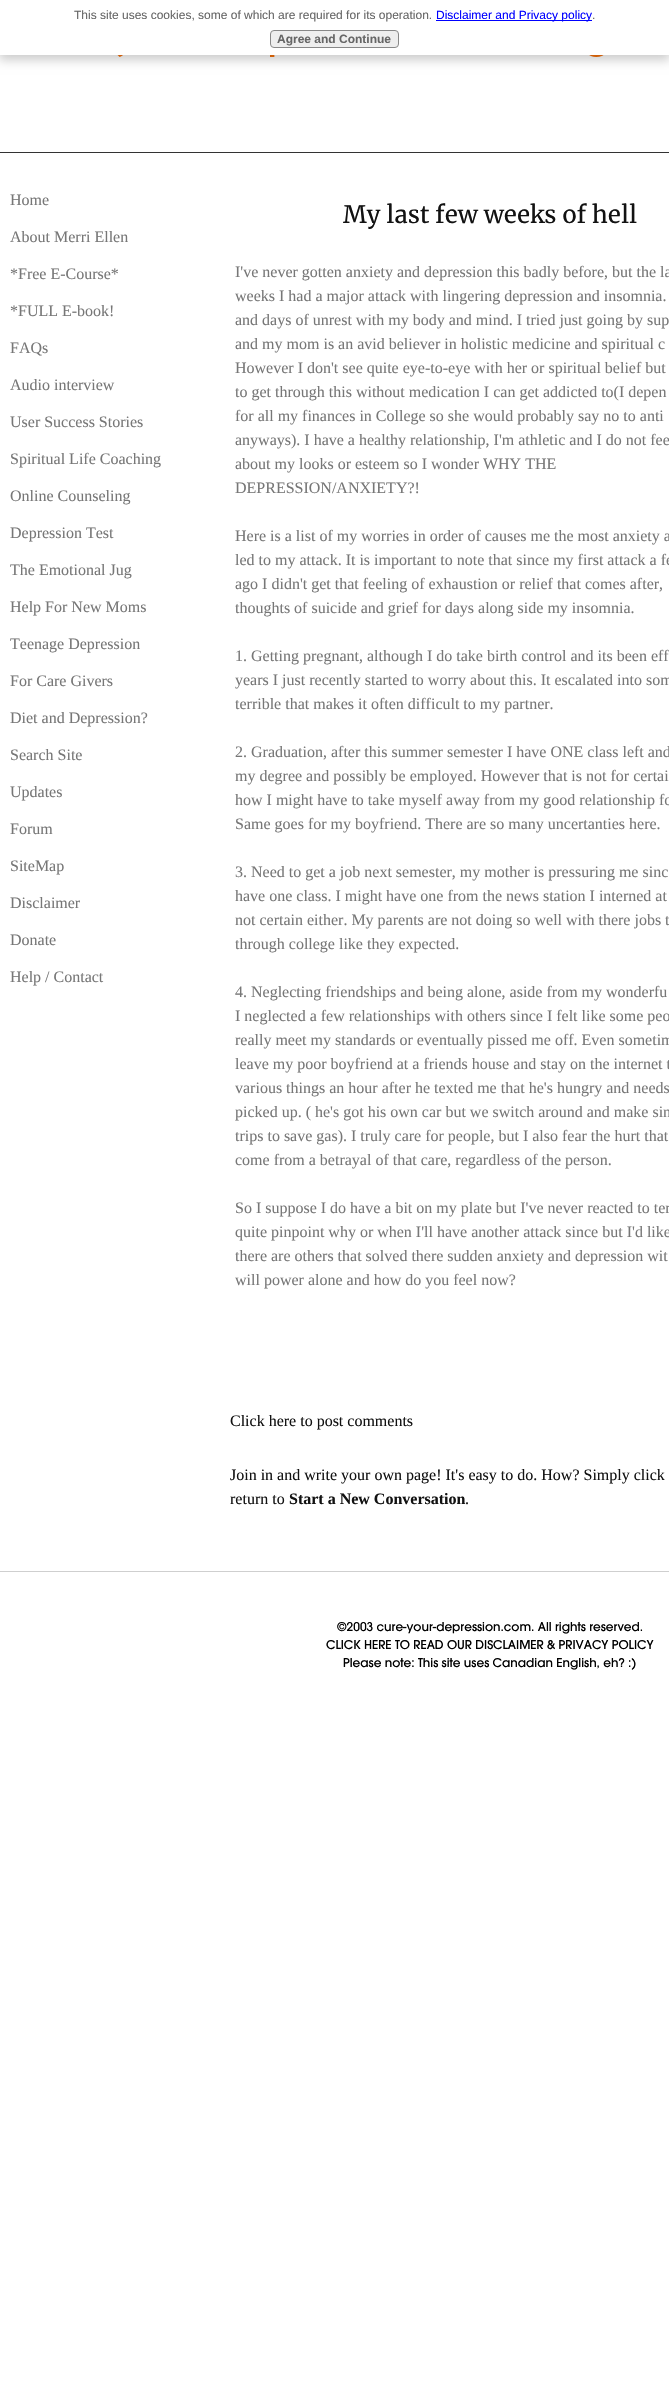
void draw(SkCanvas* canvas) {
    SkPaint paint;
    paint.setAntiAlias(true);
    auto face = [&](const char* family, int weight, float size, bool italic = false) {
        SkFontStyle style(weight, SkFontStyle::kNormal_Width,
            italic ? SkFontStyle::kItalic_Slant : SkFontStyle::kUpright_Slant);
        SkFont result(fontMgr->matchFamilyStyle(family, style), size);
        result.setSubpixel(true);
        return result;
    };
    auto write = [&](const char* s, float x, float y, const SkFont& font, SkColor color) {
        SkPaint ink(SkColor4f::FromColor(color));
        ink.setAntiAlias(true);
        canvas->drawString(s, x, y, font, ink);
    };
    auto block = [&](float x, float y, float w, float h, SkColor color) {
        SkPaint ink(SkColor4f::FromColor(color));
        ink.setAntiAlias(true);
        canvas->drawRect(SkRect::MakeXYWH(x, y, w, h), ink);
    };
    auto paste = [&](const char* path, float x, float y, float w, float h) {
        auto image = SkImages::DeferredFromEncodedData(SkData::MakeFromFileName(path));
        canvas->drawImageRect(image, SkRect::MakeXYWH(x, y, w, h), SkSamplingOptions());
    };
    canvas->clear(SK_ColorWHITE);
    paste("pic1.png", 117, 55, 487, 2);
    paint.setColor(SkColorSetARGB(51, 0, 0, 0));
    paint.setMaskFilter(SkMaskFilter::MakeBlur(kNormal_SkBlurStyle, 5));
    canvas->drawRect(SkRect::MakeXYWH(-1, 3, 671, 57), paint);
    paint.setMaskFilter(nullptr);
    block(0, 0, 669, 55, SK_ColorWHITE);
    auto kFont1 = face("Liberation Sans", 400, 12);
    write("This site uses cookies, some of which are required for its operation.", 74, 19, kFont1, SkColorSetRGB(102, 102, 102));
    block(436, 20, 156, 1, SkColorSetRGB(0, 0, 255));
    write("Disclaimer and Privacy policy", 436, 19, kFont1, SkColorSetRGB(0, 0, 255));
    write(".", 592, 19, kFont1, SkColorSetRGB(102, 102, 102));
    paint.setColor(SkColorSetRGB(238, 238, 238));
    canvas->drawRoundRect(SkRect::MakeXYWH(270.5f, 30.5f, 128, 17), 3.5f, 3.5f, paint);
    paint.setStyle(SkPaint::kStroke_Style);
    paint.setStrokeWidth(1);
    paint.setColor(SkColorSetRGB(136, 136, 136));
    canvas->drawRoundRect(SkRect::MakeXYWH(270.5f, 30.5f, 128, 17), 3.5f, 3.5f, paint);
    auto kFont2 = face("Liberation Sans", 700, 12);
    write("Agree and Continue", 277, 43, kFont2, SkColorSetRGB(102, 102, 102));
    block(0, 152, 669, 1, SkColorSetRGB(51, 51, 51));
    auto kFont3 = face("Liberation Serif", 400, 16);
    write("Home", 10, 205, kFont3, SkColorSetRGB(119, 119, 119));
    write("About Merri Ellen", 10, 242, kFont3, SkColorSetRGB(119, 119, 119));
    write("*Free E-Course*", 10, 279, kFont3, SkColorSetRGB(119, 119, 119));
    write("*FULL E-book!", 10, 316, kFont3, SkColorSetRGB(119, 119, 119));
    write("FAQs", 10, 353, kFont3, SkColorSetRGB(119, 119, 119));
    write("Audio interview", 10, 390, kFont3, SkColorSetRGB(119, 119, 119));
    write("User Success Stories", 10, 427, kFont3, SkColorSetRGB(119, 119, 119));
    write("Spiritual Life Coaching", 10, 464, kFont3, SkColorSetRGB(119, 119, 119));
    write("Online Counseling", 10, 501, kFont3, SkColorSetRGB(119, 119, 119));
    write("Depression Test", 10, 538, kFont3, SkColorSetRGB(119, 119, 119));
    write("The Emotional Jug", 10, 575, kFont3, SkColorSetRGB(119, 119, 119));
    write("Help For New Moms", 10, 612, kFont3, SkColorSetRGB(119, 119, 119));
    write("Teenage Depression", 10, 649, kFont3, SkColorSetRGB(119, 119, 119));
    write("For Care Givers", 10, 686, kFont3, SkColorSetRGB(119, 119, 119));
    write("Diet and Depression?", 10, 723, kFont3, SkColorSetRGB(119, 119, 119));
    write("Search Site", 10, 760, kFont3, SkColorSetRGB(119, 119, 119));
    write("Updates", 10, 797, kFont3, SkColorSetRGB(119, 119, 119));
    write("Forum", 10, 834, kFont3, SkColorSetRGB(119, 119, 119));
    write("SiteMap", 10, 871, kFont3, SkColorSetRGB(119, 119, 119));
    write("Disclaimer", 10, 908, kFont3, SkColorSetRGB(119, 119, 119));
    write("Donate", 10, 945, kFont3, SkColorSetRGB(119, 119, 119));
    write("Help / Contact", 10, 982, kFont3, SkColorSetRGB(119, 119, 119));
    auto kFont4 = face("Merriweather", 400, 24);
    write("My last few weeks of hell", 343, 223, kFont4, SkColorSetRGB(18, 18, 18));
    write("I've never gotten anxiety and depression this badly before, but the la", 235, 277, kFont3, SkColorSetRGB(119, 119, 119));
    write("weeks I had a major attack with lingering depression and insomnia.", 235, 301, kFont3, SkColorSetRGB(119, 119, 119));
    write("and days of unrest with my body and mind. I tried just going by sup", 235, 325, kFont3, SkColorSetRGB(119, 119, 119));
    write("and my mom is an avid believer in holistic medicine and spiritual c", 235, 349, kFont3, SkColorSetRGB(119, 119, 119));
    write("However I don't see quite eye-to-eye with her or spiritual belief but", 235, 373, kFont3, SkColorSetRGB(119, 119, 119));
    write("to get through this without medication I can get addicted to(I depen", 235, 397, kFont3, SkColorSetRGB(119, 119, 119));
    write("for all my finances in College so she would probably say no to anti", 235, 421, kFont3, SkColorSetRGB(119, 119, 119));
    write("anyways). I have a healthy relationship, I'm athletic and I do not fee", 235, 445, kFont3, SkColorSetRGB(119, 119, 119));
    write("about my looks or esteem so I wonder WHY THE", 235, 469, kFont3, SkColorSetRGB(119, 119, 119));
    write("DEPRESSION/ANXIETY?!", 235, 493, kFont3, SkColorSetRGB(119, 119, 119));
    write("Here is a list of my worries in order of causes me the most anxiety a", 235, 541, kFont3, SkColorSetRGB(119, 119, 119));
    write("led to my attack. It is important to note that since my first attack a fe", 235, 565, kFont3, SkColorSetRGB(119, 119, 119));
    write("ago I didn't get that feeling of exhaustion or relief that comes after,", 235, 589, kFont3, SkColorSetRGB(119, 119, 119));
    write("thoughts of suicide and grief for days along side my insomnia.", 235, 613, kFont3, SkColorSetRGB(119, 119, 119));
    write("1. Getting pregnant, although I do take birth control and its been eff", 235, 661, kFont3, SkColorSetRGB(119, 119, 119));
    write("years I just recently started to worry about this. It escalated into som", 235, 685, kFont3, SkColorSetRGB(119, 119, 119));
    write("terrible that makes it often difficult to my partner.", 235, 709, kFont3, SkColorSetRGB(119, 119, 119));
    write("2. Graduation, after this summer semester I have ONE class left and", 235, 757, kFont3, SkColorSetRGB(119, 119, 119));
    write("my degree and possibly be employed. However that is not for certai", 235, 781, kFont3, SkColorSetRGB(119, 119, 119));
    write("how I might have to take myself away from my good relationship fo", 235, 805, kFont3, SkColorSetRGB(119, 119, 119));
    write("Same goes for my boyfriend. There are so many uncertanties here.", 235, 829, kFont3, SkColorSetRGB(119, 119, 119));
    write("3. Need to get a job next semester, my mother is pressuring me sinc", 235, 877, kFont3, SkColorSetRGB(119, 119, 119));
    write("have one class. I might have one from the news station I interned at", 235, 901, kFont3, SkColorSetRGB(119, 119, 119));
    write("not certain either. My parents are not doing so well with there jobs t", 235, 925, kFont3, SkColorSetRGB(119, 119, 119));
    write("through college like they expected.", 235, 949, kFont3, SkColorSetRGB(119, 119, 119));
    write("4. Neglecting friendships and being alone, aside from my wonderfu", 235, 997, kFont3, SkColorSetRGB(119, 119, 119));
    write("I neglected a few relationships with others since I felt like some peo", 235, 1021, kFont3, SkColorSetRGB(119, 119, 119));
    write("really meet my standards or eventually pissed me off. Even sometim", 235, 1045, kFont3, SkColorSetRGB(119, 119, 119));
    write("leave my poor boyfriend at a friends house and stay on the internet t", 235, 1069, kFont3, SkColorSetRGB(119, 119, 119));
    write("various things an hour after he texted me that he's hungry and needs", 235, 1093, kFont3, SkColorSetRGB(119, 119, 119));
    write("picked up. ( he's got his own car but we switch around and make sin", 235, 1117, kFont3, SkColorSetRGB(119, 119, 119));
    write("trips to save gas). I truly care for people, but I also fear the hurt that", 235, 1141, kFont3, SkColorSetRGB(119, 119, 119));
    write("come from a betrayal of that care, regardless of the person.", 235, 1165, kFont3, SkColorSetRGB(119, 119, 119));
    write("So I suppose I do have a bit on my plate but I've never reacted to ter", 235, 1213, kFont3, SkColorSetRGB(119, 119, 119));
    write("quite pinpoint why or when I'll have another attack since but I'd like", 235, 1237, kFont3, SkColorSetRGB(119, 119, 119));
    write("there are others that solved there sudden anxiety and depression wit", 235, 1261, kFont3, SkColorSetRGB(119, 119, 119));
    write("will power alone and how do you feel now?", 235, 1285, kFont3, SkColorSetRGB(119, 119, 119));
    write("Click here to post comments", 230, 1426, kFont3, SkColorSetRGB(18, 18, 18));
    write("Join in and write your own page! It's easy to do. How? Simply click", 230, 1480, kFont3, SkColorSetRGB(18, 18, 18));
    write("return to", 230, 1504, kFont3, SkColorSetRGB(18, 18, 18));
    auto kFont5 = face("Liberation Serif", 700, 16);
    write("Start a New Conversation", 289, 1504, kFont5, SkColorSetRGB(18, 18, 18));
    write(".", 465, 1504, kFont3, SkColorSetRGB(18, 18, 18));
    block(0, 1571, 669, 1, SkColorSetRGB(207, 207, 207));
    auto kFont6 = face("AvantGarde", 400, 12);
    write("©2003 cure-your-depression.com. All rights reserved.", 337, 1631, kFont6, SK_ColorBLACK);
    write("CLICK HERE TO READ OUR DISCLAIMER & PRIVACY POLICY", 326, 1649, kFont6, SK_ColorBLACK);
    write("Please note: This site uses Canadian English, eh? :)", 343, 1667, kFont6, SK_ColorBLACK);
}
